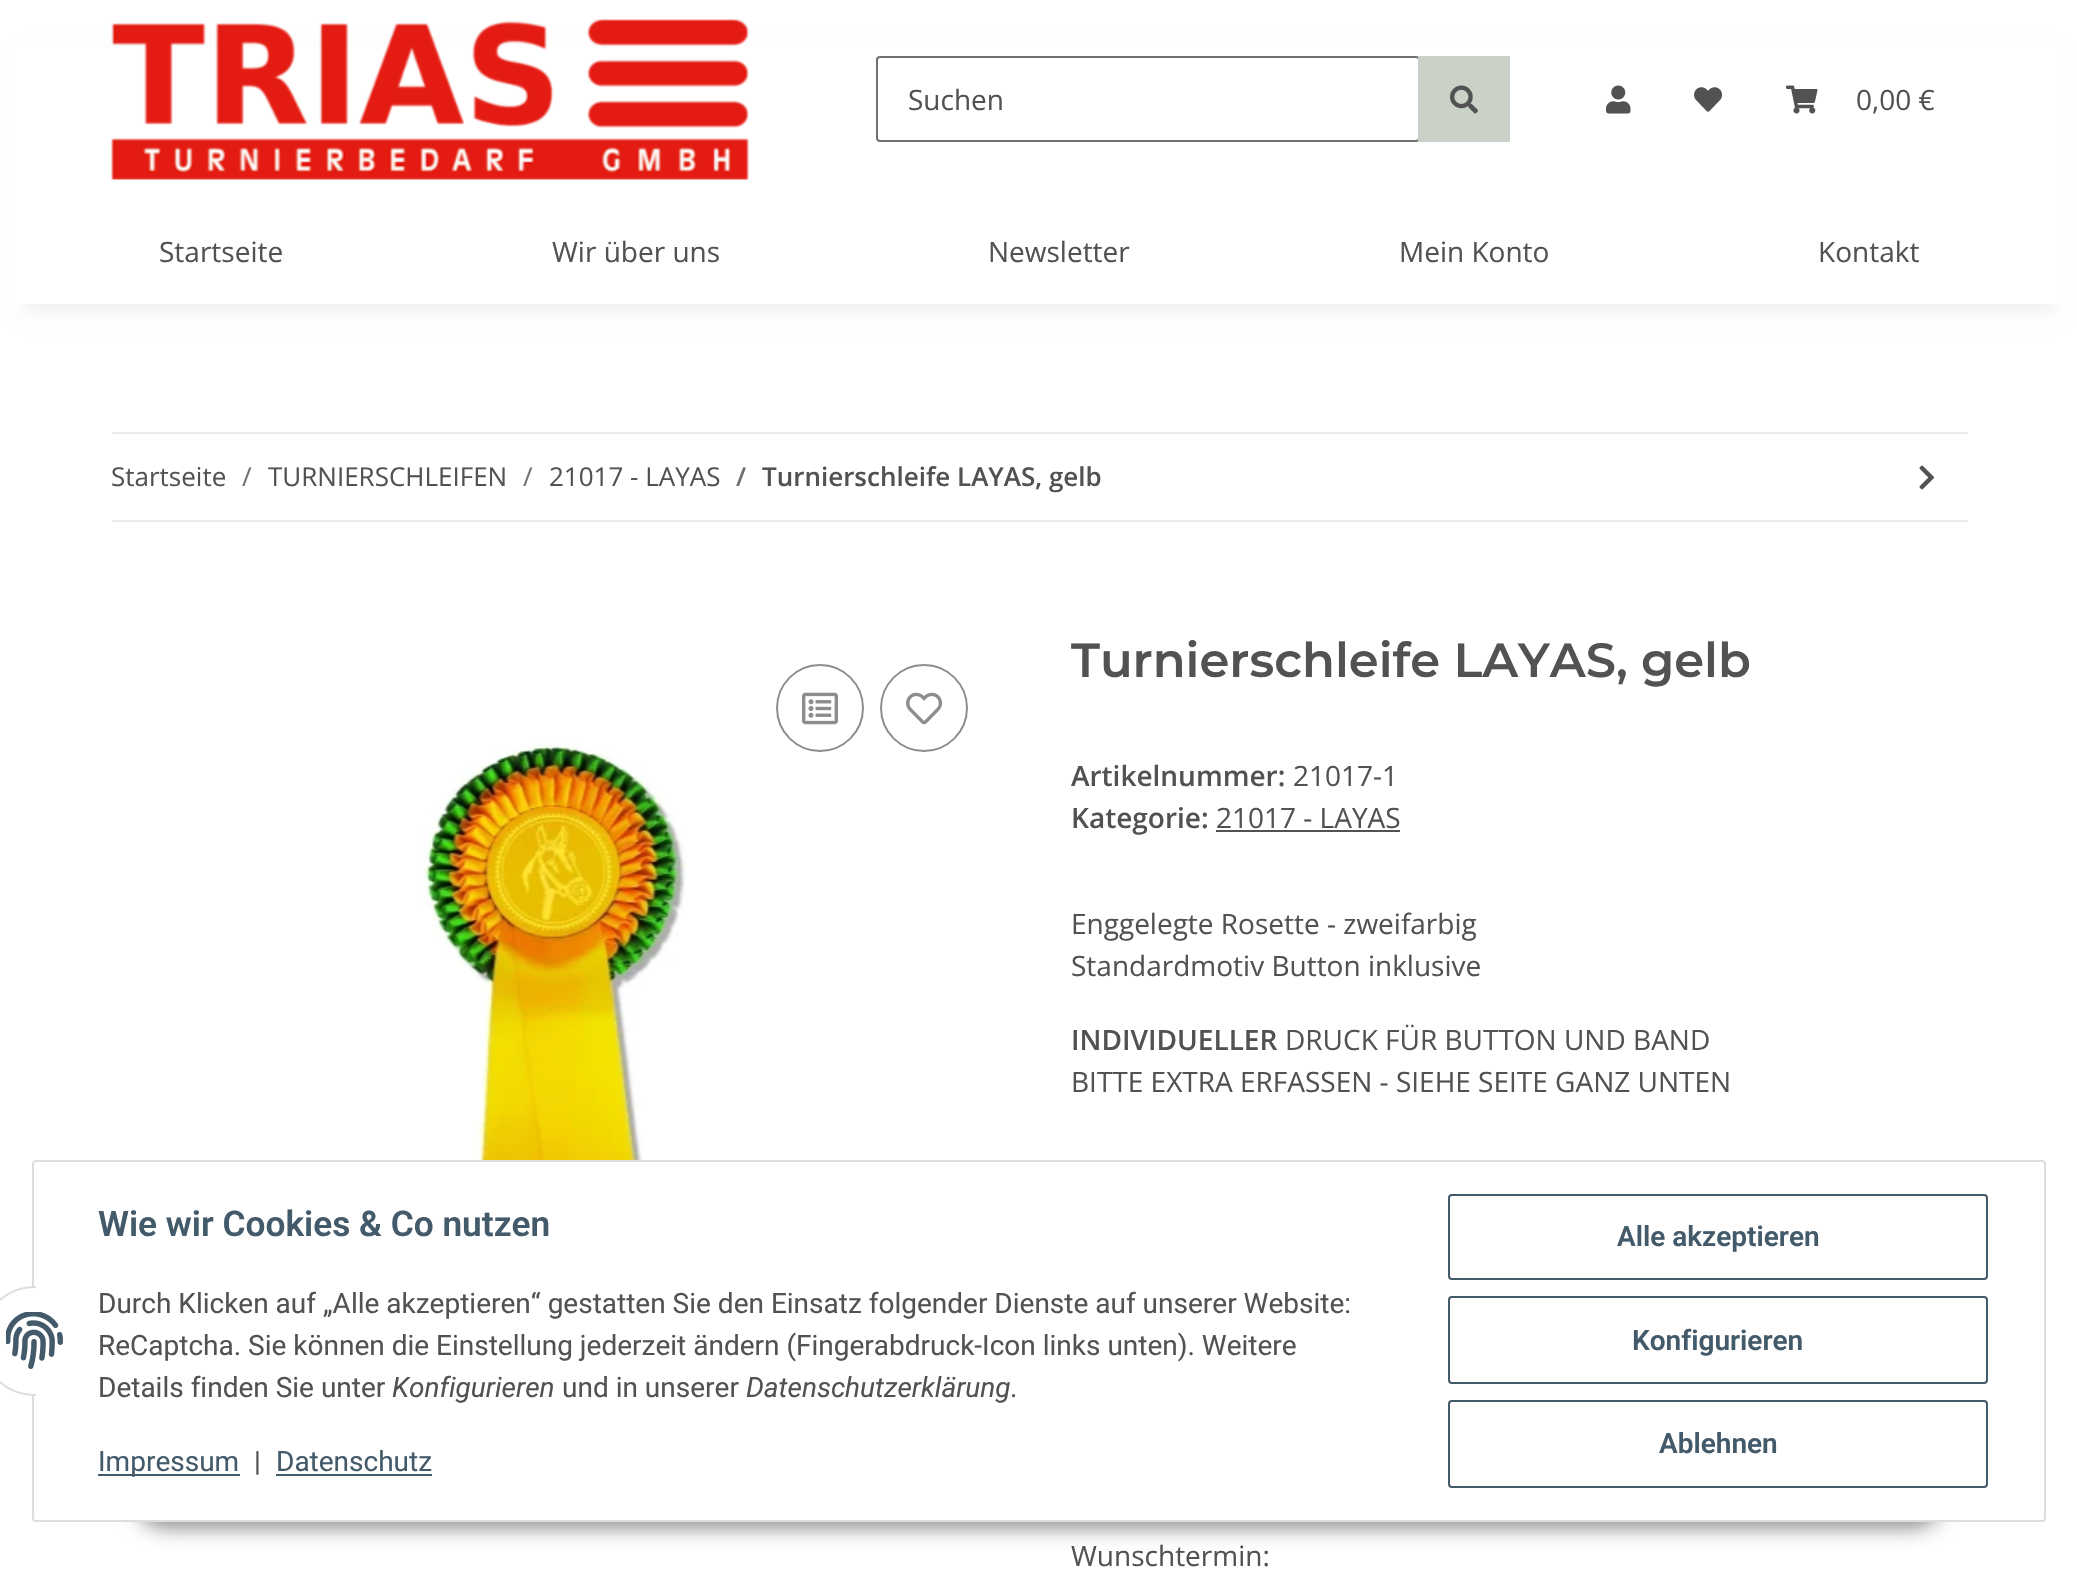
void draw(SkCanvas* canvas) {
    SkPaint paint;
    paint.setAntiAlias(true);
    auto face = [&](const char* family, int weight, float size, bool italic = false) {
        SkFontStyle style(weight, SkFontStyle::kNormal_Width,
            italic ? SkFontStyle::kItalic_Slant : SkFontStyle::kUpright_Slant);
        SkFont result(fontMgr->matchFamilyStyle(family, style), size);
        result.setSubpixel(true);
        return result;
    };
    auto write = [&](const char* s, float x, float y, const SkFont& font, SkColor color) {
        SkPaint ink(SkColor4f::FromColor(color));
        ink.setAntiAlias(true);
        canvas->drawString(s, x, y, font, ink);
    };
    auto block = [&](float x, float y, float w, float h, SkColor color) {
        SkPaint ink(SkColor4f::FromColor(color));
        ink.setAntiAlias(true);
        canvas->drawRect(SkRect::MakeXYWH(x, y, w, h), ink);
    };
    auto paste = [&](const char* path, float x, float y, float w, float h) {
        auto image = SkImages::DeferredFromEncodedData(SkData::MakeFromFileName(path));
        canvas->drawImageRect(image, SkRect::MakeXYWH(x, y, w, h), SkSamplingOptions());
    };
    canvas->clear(SK_ColorWHITE);
    paint.setColor(SkColorSetARGB(15, 0, 0, 0));
    paint.setMaskFilter(SkMaskFilter::MakeBlur(kNormal_SkBlurStyle, 9));
    canvas->drawRect(SkRect::MakeXYWH(24, 56, 2030, 256), paint);
    paint.setMaskFilter(nullptr);
    block(15, 47, 2048, 257, SK_ColorWHITE);
    paste("pic1.png", 111, 19, 638, 161);
    paint.setStyle(SkPaint::kStroke_Style);
    paint.setStrokeWidth(2);
    paint.setColor(SkColorSetRGB(112, 112, 112));
    canvas->drawRoundRect(SkRect::MakeXYWH(877, 57, 542, 84), 3, 3, paint);
    auto kFont1 = face("Open Sans", 400, 28);
    write("Suchen", 908, 110, kFont1, SkColorSetRGB(82, 82, 82));
    block(1418, 56, 92, 86, SkColorSetRGB(202, 210, 199));
    paste("pic2.png", 1450, 85, 28, 29);
    paste("pic3.png", 1606, 85, 25, 29);
    paste("pic4.png", 1694, 87, 29, 25);
    paste("pic5.png", 1786, 85, 32, 29);
    write("0,00 €", 1856, 110, kFont1, SkColorSetRGB(82, 82, 82));
    write("Startseite", 159, 262, kFont1, SkColorSetRGB(82, 82, 82));
    write("Wir über uns", 552, 262, kFont1, SkColorSetRGB(82, 82, 82));
    write("Newsletter", 988, 262, kFont1, SkColorSetRGB(82, 82, 82));
    write("Mein Konto", 1399, 262, kFont1, SkColorSetRGB(82, 82, 82));
    write("Kontakt", 1818, 262, kFont1, SkColorSetRGB(82, 82, 82));
    block(112, 432, 1856, 2, SkColorSetRGB(235, 235, 235));
    block(112, 520, 1856, 2, SkColorSetRGB(235, 235, 235));
    auto kFont2 = face("Open Sans", 400, 26);
    write("Startseite", 111, 486, kFont2, SkColorSetRGB(82, 82, 82));
    write("/", 242, 486, kFont2, SkColorSetRGB(112, 112, 112));
    write("TURNIERSCHLEIFEN", 268, 486, kFont2, SkColorSetRGB(82, 82, 82));
    write("/", 523, 486, kFont2, SkColorSetRGB(112, 112, 112));
    write("21017 - LAYAS", 549, 486, kFont2, SkColorSetRGB(82, 82, 82));
    auto kFont3 = face("Open Sans", 600, 26);
    write("/", 736, 486, kFont3, SkColorSetRGB(112, 112, 112));
    write("Turnierschleife LAYAS, gelb", 762, 486, kFont3, SkColorSetRGB(82, 82, 82));
    paste("pic6.png", 1919, 465, 15, 25);
    paint.setColor(SkColorSetRGB(141, 141, 141));
    canvas->drawCircle(820, 708, 43, paint);
    paste("pic7.png", 802, 692, 36, 33);
    canvas->drawCircle(924, 708, 43, paint);
    paste("pic8.png", 906, 692, 37, 33);
    paste("pic9.png", 422, 740, 264, 420);
    auto kFont4 = face("Montserrat", 600, 48);
    write("Turnierschleife LAYAS, gelb", 1071, 677, kFont4, SkColorSetRGB(82, 82, 82));
    auto kFont5 = face("Open Sans", 600, 28);
    write("Artikelnummer:", 1071, 786, kFont5, SkColorSetRGB(82, 82, 82));
    write("21017-1", 1293, 786, kFont1, SkColorSetRGB(82, 82, 82));
    write("Kategorie:", 1071, 828, kFont5, SkColorSetRGB(82, 82, 82));
    write("21017 - LAYAS", 1216, 828, kFont1, SkColorSetRGB(82, 82, 82));
    block(1216, 830, 184, 2, SkColorSetRGB(82, 82, 82));
    write("Enggelegte Rosette - zweifarbig", 1071, 934, kFont1, SkColorSetRGB(82, 82, 82));
    write("Standardmotiv Button inklusive", 1071, 976, kFont1, SkColorSetRGB(82, 82, 82));
    write("INDIVIDUELLER", 1071, 1050, kFont5, SkColorSetRGB(82, 82, 82));
    write("DRUCK FÜR BUTTON UND BAND", 1285, 1050, kFont1, SkColorSetRGB(82, 82, 82));
    write("BITTE EXTRA ERFASSEN - SIEHE SEITE GANZ UNTEN", 1071, 1092, kFont1, SkColorSetRGB(82, 82, 82));
    write("Wunschtermin:", 1071, 1566, kFont1, SkColorSetRGB(82, 82, 82));
    paint.setStyle(SkPaint::kFill_Style);
    paint.setColor(SkColorSetARGB(115, 0, 0, 0));
    paint.setMaskFilter(SkMaskFilter::MakeBlur(kNormal_SkBlurStyle, 10));
    canvas->drawRoundRect(SkRect::MakeXYWH(134, 1464, 1810, 64), 32, 32, paint);
    paint.setMaskFilter(nullptr);
    paint.setColor(SK_ColorWHITE);
    canvas->drawRoundRect(SkRect::MakeXYWH(33, 1161, 2012, 360), 3, 3, paint);
    paint.setStyle(SkPaint::kStroke_Style);
    paint.setColor(SkColorSetRGB(221, 221, 221));
    canvas->drawRoundRect(SkRect::MakeXYWH(33, 1161, 2012, 360), 3, 3, paint);
    paint.setStyle(SkPaint::kFill_Style);
    paint.setColor(SK_ColorWHITE);
    canvas->drawCircle(35, 1341, 54, paint);
    paint.setStyle(SkPaint::kStroke_Style);
    paint.setColor(SkColorSetRGB(221, 221, 221));
    canvas->drawCircle(35, 1341, 54, paint);
    block(36, 1286, 54, 110, SK_ColorWHITE);
    paste("pic10.png", 6, 1312, 57, 57);
    auto kFont6 = face("Roboto", 600, 35.25f);
    write("Wie wir Cookies & Co nutzen", 98, 1236, kFont6, SkColorSetRGB(67, 90, 107));
    auto kFont7 = face("Roboto", 400, 28);
    write("Durch Klicken auf „Alle akzeptieren“ gestatten Sie den Einsatz folgender Dienste auf unserer Website:", 98, 1313, kFont7, SkColorSetRGB(82, 82, 82));
    write("ReCaptcha. Sie können die Einstellung jederzeit ändern (Fingerabdruck-Icon links unten). Weitere", 98, 1355, kFont7, SkColorSetRGB(82, 82, 82));
    write("Details finden Sie unter", 98, 1397, kFont7, SkColorSetRGB(82, 82, 82));
    auto kFont8 = face("Roboto", 400, 28, true);
    write("Konfigurieren", 392, 1397, kFont8, SkColorSetRGB(82, 82, 82));
    write("und in unserer", 562, 1397, kFont7, SkColorSetRGB(82, 82, 82));
    write("Datenschutzerklärung", 746, 1397, kFont8, SkColorSetRGB(82, 82, 82));
    write(".", 1010, 1397, kFont7, SkColorSetRGB(82, 82, 82));
    block(98, 1474, 142, 2, SkColorSetRGB(67, 90, 107));
    write("Impressum", 98, 1471, kFont7, SkColorSetRGB(67, 90, 107));
    write("|", 254, 1471, kFont7, SkColorSetRGB(82, 82, 82));
    write("Datenschutz", 276, 1471, kFont7, SkColorSetRGB(67, 90, 107));
    block(276, 1474, 156, 2, SkColorSetRGB(67, 90, 107));
    paint.setColor(SkColorSetRGB(67, 90, 107));
    canvas->drawRoundRect(SkRect::MakeXYWH(1449, 1195, 538, 84), 3, 3, paint);
    auto kFont9 = face("Roboto", 600, 28);
    write("Alle akzeptieren", 1617, 1246, kFont9, SkColorSetRGB(67, 90, 107));
    canvas->drawRoundRect(SkRect::MakeXYWH(1449, 1297, 538, 86), 3, 3, paint);
    write("Konfigurieren", 1632, 1350, kFont9, SkColorSetRGB(67, 90, 107));
    canvas->drawRoundRect(SkRect::MakeXYWH(1449, 1401, 538, 86), 3, 3, paint);
    write("Ablehnen", 1659, 1453, kFont9, SkColorSetRGB(67, 90, 107));
}
